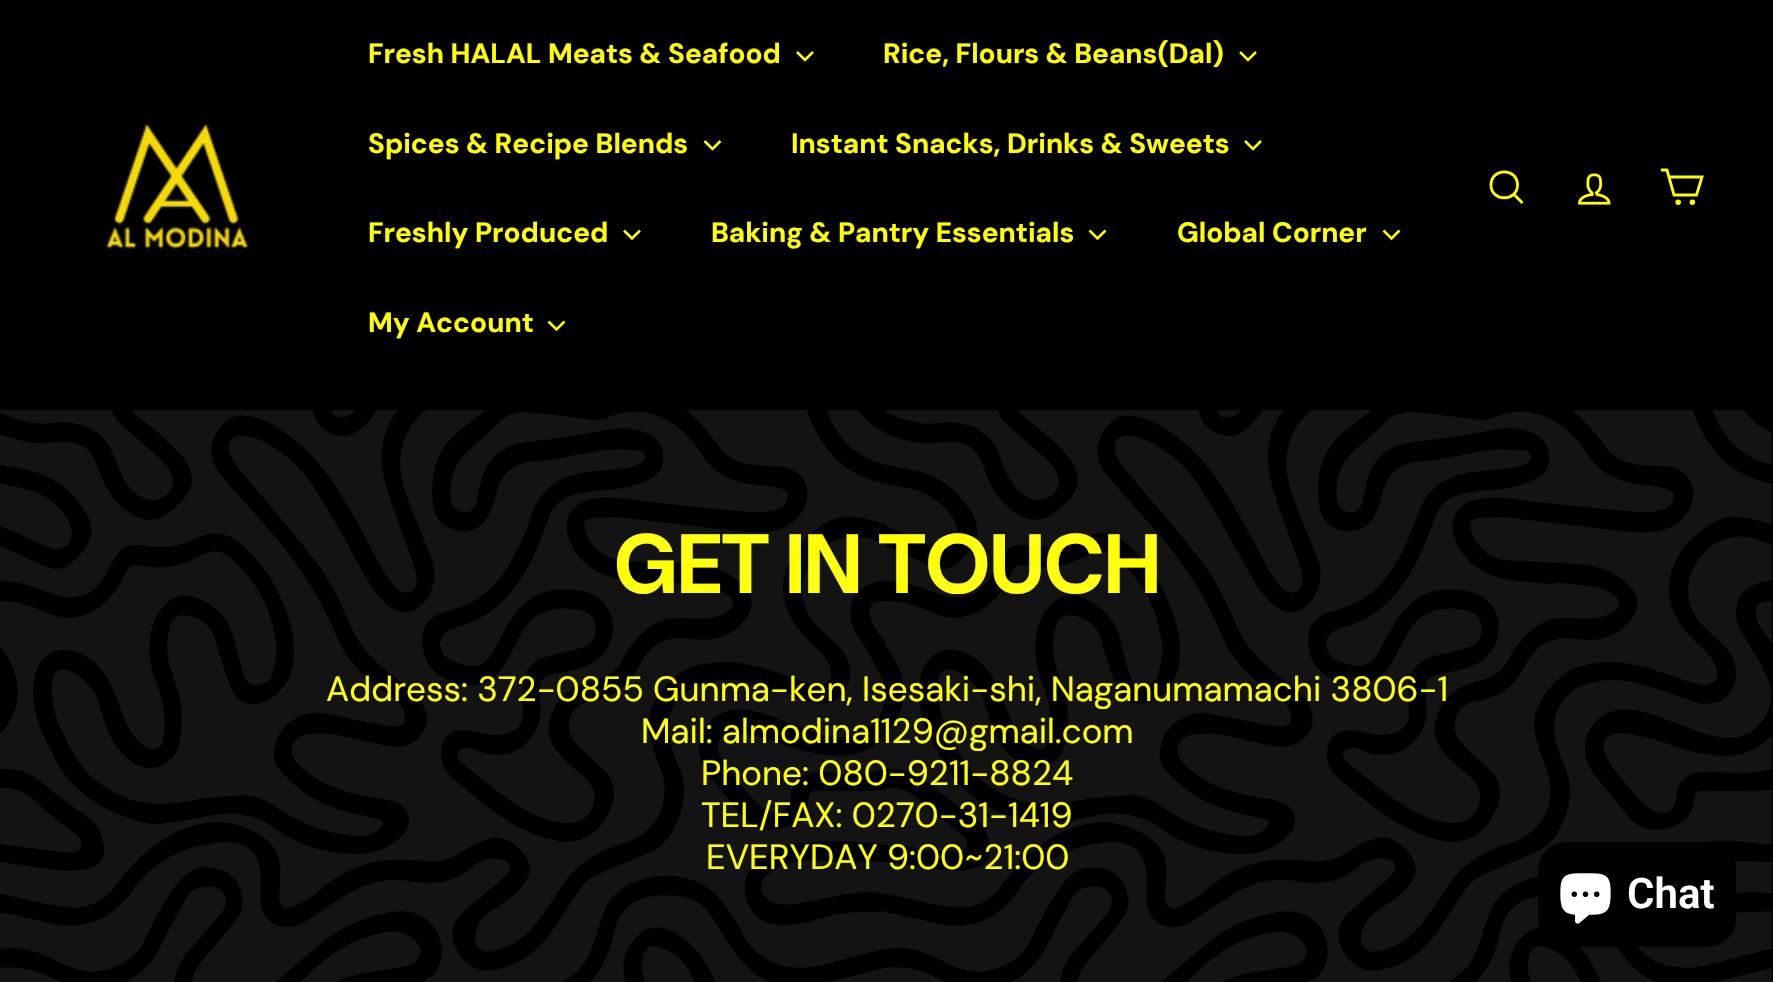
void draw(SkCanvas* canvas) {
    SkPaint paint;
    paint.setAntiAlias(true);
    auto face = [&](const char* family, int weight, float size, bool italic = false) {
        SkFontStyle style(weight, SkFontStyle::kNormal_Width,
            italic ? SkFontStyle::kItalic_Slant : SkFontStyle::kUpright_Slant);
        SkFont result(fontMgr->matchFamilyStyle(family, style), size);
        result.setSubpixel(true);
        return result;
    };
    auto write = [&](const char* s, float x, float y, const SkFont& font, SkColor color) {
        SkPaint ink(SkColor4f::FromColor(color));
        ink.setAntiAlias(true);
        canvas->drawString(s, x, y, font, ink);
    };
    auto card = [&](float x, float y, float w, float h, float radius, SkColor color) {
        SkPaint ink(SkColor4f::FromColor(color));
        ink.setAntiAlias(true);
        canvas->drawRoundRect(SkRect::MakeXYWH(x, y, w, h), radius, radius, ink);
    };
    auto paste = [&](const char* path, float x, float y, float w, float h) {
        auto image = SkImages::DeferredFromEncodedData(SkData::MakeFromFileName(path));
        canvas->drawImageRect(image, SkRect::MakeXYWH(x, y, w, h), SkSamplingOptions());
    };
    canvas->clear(SK_ColorBLACK);
    paste("pic1.png", 106, 124, 143, 125);
    auto kFont1 = face("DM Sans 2", 700, 28);
    write("Fresh HALAL Meats & Seafood", 368, 63, kFont1, SkColorSetRGB(255, 255, 0));
    paint.setStyle(SkPaint::kStroke_Style);
    paint.setStrokeWidth(2.5f);
    paint.setColor(SkColorSetRGB(255, 255, 0));
    canvas->drawPath(SkPathBuilder().moveTo(797, 52).lineTo(805, 60).lineTo(813, 52).detach(), paint);
    write("Rice, Flours & Beans(Dal)", 883, 63, kFont1, SkColorSetRGB(255, 255, 0));
    canvas->drawPath(SkPathBuilder().moveTo(1240, 52).lineTo(1248, 60).lineTo(1256, 52).detach(), paint);
    write("Spices & Recipe Blends", 368, 153, kFont1, SkColorSetRGB(255, 255, 0));
    canvas->drawPath(SkPathBuilder().moveTo(704.5f, 141).lineTo(712.5f, 149).lineTo(720.5f, 141).detach(), paint);
    write("Instant Snacks, Drinks & Sweets", 791, 153, kFont1, SkColorSetRGB(255, 255, 0));
    canvas->drawPath(SkPathBuilder().moveTo(1245, 141).lineTo(1253, 149).lineTo(1261, 141).detach(), paint);
    write("Freshly Produced", 368, 242, kFont1, SkColorSetRGB(255, 255, 0));
    canvas->drawPath(SkPathBuilder().moveTo(624, 230.5f).lineTo(632, 238.5f).lineTo(640, 230.5f).detach(), paint);
    write("Baking & Pantry Essentials", 711, 242, kFont1, SkColorSetRGB(255, 255, 0));
    canvas->drawPath(SkPathBuilder().moveTo(1089.5f, 230.5f).lineTo(1097.5f, 238.5f).lineTo(1105.5f, 230.5f).detach(), paint);
    write("Global Corner", 1177, 242, kFont1, SkColorSetRGB(255, 255, 0));
    canvas->drawPath(SkPathBuilder().moveTo(1383.5f, 230.5f).lineTo(1391.5f, 238.5f).lineTo(1399.5f, 230.5f).detach(), paint);
    write("My Account", 368, 332, kFont1, SkColorSetRGB(255, 255, 0));
    canvas->drawPath(SkPathBuilder().moveTo(548.5f, 321.5f).lineTo(556.5f, 329.5f).lineTo(564.5f, 321.5f).detach(), paint);
    paint.setStrokeWidth(2.8f);
    canvas->drawPath(SkPathBuilder().moveTo(1517.5f, 185).cubicTo(1517.5f, 202, 1491, 202, 1491, 185).cubicTo(1491, 167.5f, 1517.5f, 167.5f, 1517.5f, 185).moveTo(1522.5f, 203).lineTo(1514, 194.5f).detach(), paint);
    paste("pic2.png", 1577, 173, 34, 32);
    canvas->drawPath(SkPathBuilder().moveTo(1669, 177).lineTo(1702, 177).lineTo(1696.5f, 195).lineTo(1674, 195).lineTo(1667, 170).lineTo(1661, 170).detach(), paint);
    canvas->drawCircle(1678.2f, 202.2f, 1.4f, paint);
    canvas->drawCircle(1692.4f, 202.2f, 1.4f, paint);
    auto kFont2 = face("DM Sans", 700, 84);
    write("GET IN TOUCH", 614, 593, kFont2, SkColorSetRGB(255, 255, 0));
    auto kFont3 = face("DM Sans", 400, 35);
    write("Address: 372-0855 Gunma-ken, Isesaki-shi, Naganumamachi 3806-1", 326, 701, kFont3, SkColorSetRGB(255, 255, 0));
    write("Mail: almodina1129@gmail.com", 641, 743, kFont3, SkColorSetRGB(255, 255, 0));
    write("Phone: 080-9211-8824", 701, 785, kFont3, SkColorSetRGB(255, 255, 0));
    write("TEL/FAX: 0270-31-1419", 701, 827, kFont3, SkColorSetRGB(255, 255, 0));
    write("EVERYDAY 9:00~21:00", 706, 869, kFont3, SkColorSetRGB(255, 255, 0));
    paste("pic3.png", 0, 410, 1772, 572);
    card(1538, 842, 198, 105, 28, SK_ColorBLACK);
    paste("pic4.png", 1560, 873, 51, 51);
    auto kFont4 = face("Roboto", 600, 42);
    write("Chat", 1627, 908, kFont4, SK_ColorWHITE);
}
